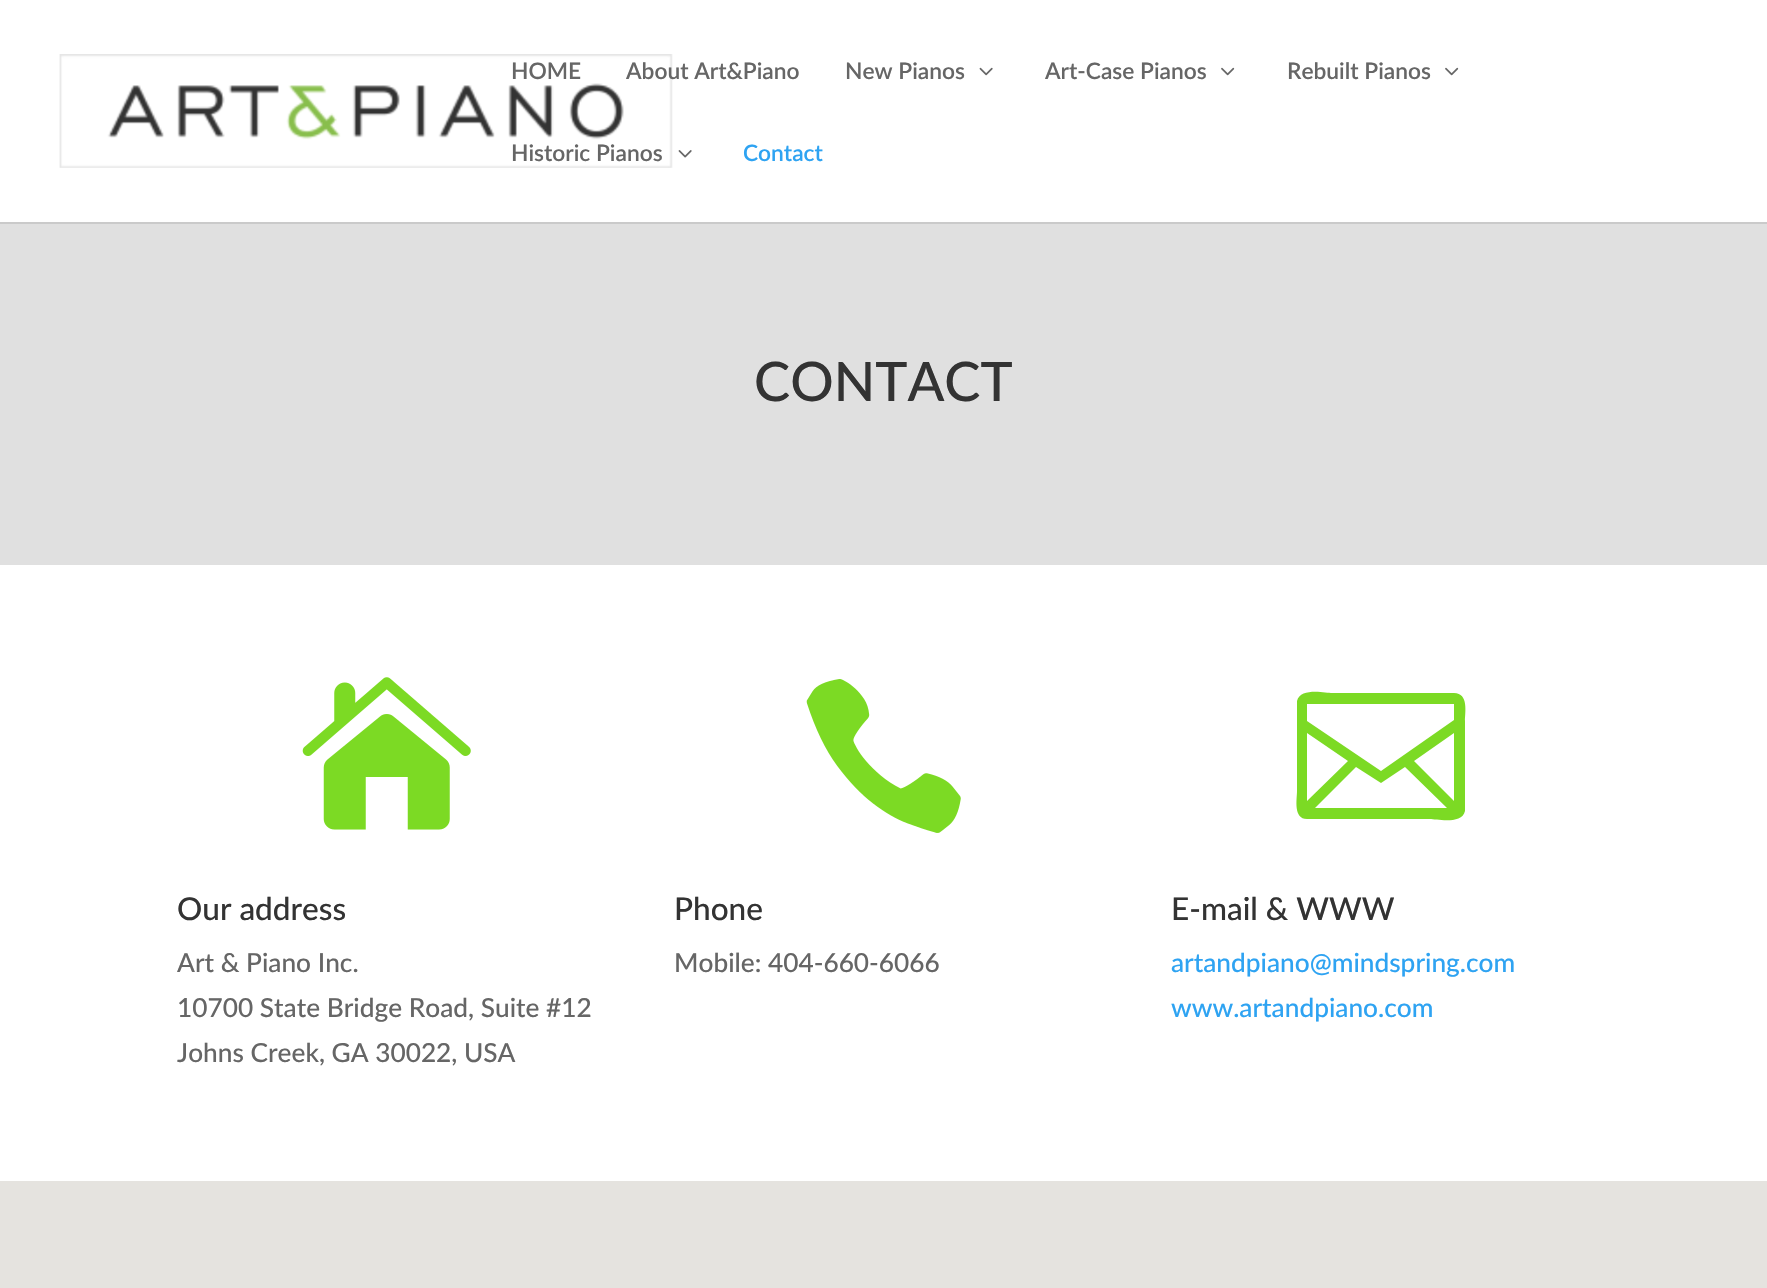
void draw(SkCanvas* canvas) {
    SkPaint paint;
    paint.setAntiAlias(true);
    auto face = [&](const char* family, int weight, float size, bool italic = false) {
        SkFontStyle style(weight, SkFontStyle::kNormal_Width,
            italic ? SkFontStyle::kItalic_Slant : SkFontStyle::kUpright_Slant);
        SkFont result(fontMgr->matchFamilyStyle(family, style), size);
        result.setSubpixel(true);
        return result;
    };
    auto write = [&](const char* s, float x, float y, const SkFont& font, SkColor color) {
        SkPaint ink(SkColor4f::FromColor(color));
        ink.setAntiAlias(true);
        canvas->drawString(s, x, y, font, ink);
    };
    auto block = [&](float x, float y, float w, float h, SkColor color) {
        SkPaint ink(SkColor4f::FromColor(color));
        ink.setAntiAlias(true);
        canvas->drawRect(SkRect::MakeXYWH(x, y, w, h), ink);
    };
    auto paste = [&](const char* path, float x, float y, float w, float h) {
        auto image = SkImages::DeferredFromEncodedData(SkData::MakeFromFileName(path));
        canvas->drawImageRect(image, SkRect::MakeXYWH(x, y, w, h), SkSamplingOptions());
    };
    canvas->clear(SK_ColorWHITE);
    paint.setColor(SkColorSetRGB(202, 202, 202));
    canvas->drawPath(SkPathBuilder().moveTo(0, 222).lineTo(0, 224).lineTo(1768, 224).lineTo(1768, 2).lineTo(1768, 222).close().detach(), paint);
    paste("pic1.png", 59, 54, 614, 114);
    auto kFont1 = face("Lato", 600, 22.75f);
    write("HOME", 511, 79, kFont1, SkColorSetRGB(102, 102, 102));
    write("About Art&Piano", 626, 79, kFont1, SkColorSetRGB(102, 102, 102));
    write("New Pianos", 845, 79, kFont1, SkColorSetRGB(102, 102, 102));
    paste("pic2.png", 979, 67, 14, 9);
    write("Art-Case Pianos", 1045, 79, kFont1, SkColorSetRGB(102, 102, 102));
    paste("pic3.png", 1221, 67, 14, 9);
    write("Rebuilt Pianos", 1287, 79, kFont1, SkColorSetRGB(102, 102, 102));
    paste("pic3.png", 1445, 67, 14, 9);
    write("Historic Pianos", 511, 161, kFont1, SkColorSetRGB(102, 102, 102));
    paste("pic4.png", 678, 150, 14, 8);
    write("Contact", 743, 161, kFont1, SkColorSetRGB(46, 163, 242));
    block(0, 224, 1767, 341, SkColorSetRGB(224, 224, 224));
    auto kFont2 = face("Lato", 500, 54.25f);
    write("CONTACT", 754, 401, kFont2, SkColorSetRGB(51, 51, 51));
    paste("pic5.png", 302, 677, 169, 153);
    auto kFont3 = face("Lato", 500, 31.5f);
    write("Our address", 177, 920, kFont3, SkColorSetRGB(51, 51, 51));
    auto kFont4 = face("Lato", 500, 26.25f);
    write("Art & Piano Inc.", 177, 972, kFont4, SkColorSetRGB(102, 102, 102));
    write("10700 State Bridge Road, Suite #12", 177, 1017, kFont4, SkColorSetRGB(102, 102, 102));
    write("Johns Creek, GA 30022, USA", 177, 1062, kFont4, SkColorSetRGB(102, 102, 102));
    paste("pic6.png", 806, 679, 155, 154);
    write("Phone", 674, 920, kFont3, SkColorSetRGB(51, 51, 51));
    write("Mobile: 404-660-6066", 674, 972, kFont4, SkColorSetRGB(102, 102, 102));
    paint.setColor(SkColorSetRGB(124, 218, 36));
    canvas->drawPath(SkPathBuilder().moveTo(1454, 693).lineTo(1332, 693).cubicTo(1326, 693, 1300, 687, 1297, 701).lineTo(1297, 791).cubicTo(1297, 799, 1293, 819, 1307, 819).lineTo(1430, 819).cubicTo(1436, 819, 1462, 825, 1465, 811).lineTo(1465, 721).cubicTo(1465, 713, 1469, 693, 1454, 693).close().moveTo(1356, 767).lineTo(1381, 783).lineTo(1405, 767).lineTo(1447, 808).lineTo(1315, 808).close().moveTo(1307, 801).lineTo(1307, 733).lineTo(1348, 761).close().moveTo(1414, 761).lineTo(1454, 733).lineTo(1454, 801).close().moveTo(1454, 704).lineTo(1454, 721).lineTo(1454, 720).lineTo(1381, 771).lineTo(1307, 721).lineTo(1307, 704).close().detach(), paint);
    write("E-mail & WWW", 1171, 920, kFont3, SkColorSetRGB(51, 51, 51));
    write("artandpiano@mindspring.com", 1171, 972, kFont4, SkColorSetRGB(46, 163, 242));
    write("www.artandpiano.com", 1171, 1017, kFont4, SkColorSetRGB(46, 163, 242));
    block(0, 1181, 1767, 107, SkColorSetRGB(229, 227, 223));
}
